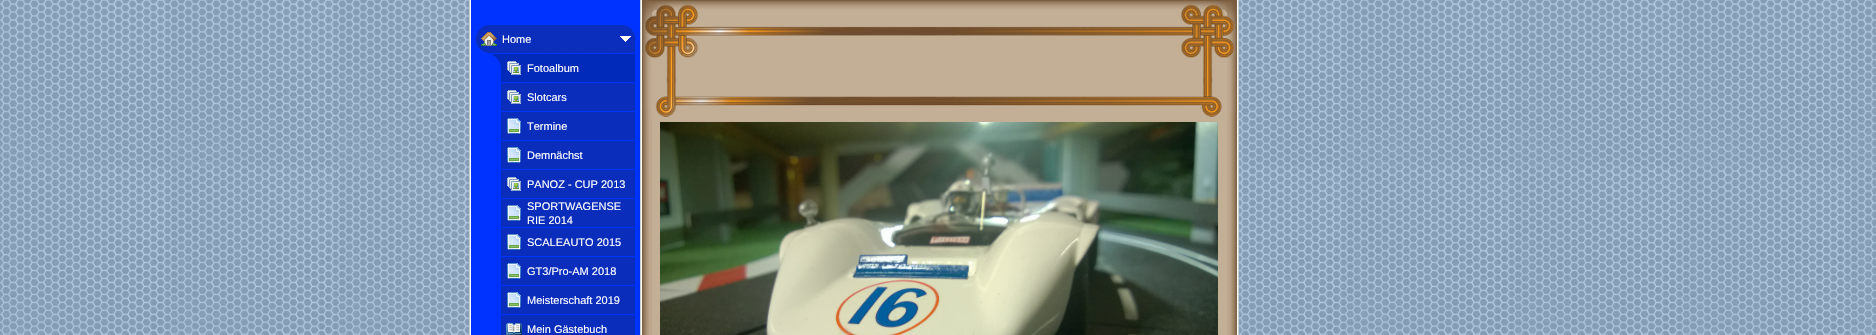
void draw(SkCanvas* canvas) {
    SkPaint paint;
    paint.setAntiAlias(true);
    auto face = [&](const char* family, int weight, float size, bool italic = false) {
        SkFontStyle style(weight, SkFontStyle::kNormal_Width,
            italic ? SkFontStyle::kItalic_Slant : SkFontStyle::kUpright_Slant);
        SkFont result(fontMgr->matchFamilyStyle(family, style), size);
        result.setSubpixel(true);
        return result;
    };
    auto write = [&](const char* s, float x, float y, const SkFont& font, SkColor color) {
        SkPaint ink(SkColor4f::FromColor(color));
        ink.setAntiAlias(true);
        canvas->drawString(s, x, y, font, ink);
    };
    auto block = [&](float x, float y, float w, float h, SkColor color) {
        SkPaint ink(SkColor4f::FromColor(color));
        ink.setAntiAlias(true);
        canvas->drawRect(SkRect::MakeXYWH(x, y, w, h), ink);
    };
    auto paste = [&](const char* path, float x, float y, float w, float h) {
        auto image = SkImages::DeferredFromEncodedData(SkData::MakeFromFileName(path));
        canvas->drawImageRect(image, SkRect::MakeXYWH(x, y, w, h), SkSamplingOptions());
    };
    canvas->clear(SkColorSetRGB(163, 194, 224));
    paste("pic1.png", 0, 0, 1876, 335);
    block(470, 0, 768, 335, SK_ColorWHITE);
    block(469, 0, 1, 335, SkColorSetRGB(204, 204, 204));
    block(471, 0, 169, 335, SkColorSetRGB(0, 51, 255));
    paste("pic2.png", 476, 25, 159, 28);
    paste("pic3.png", 481, 32, 16, 14);
    paste("pic4.png", 620, 36, 11, 6);
    auto kFont1 = face("Liberation Sans", 400, 11);
    write("Home", 502, 43, kFont1, SK_ColorWHITE);
    paste("pic5.png", 492, 54, 143, 28);
    paste("pic6.png", 507, 61, 14, 14);
    write("Fotoalbum", 527, 72, kFont1, SK_ColorWHITE);
    block(501, 83, 134, 28, SkColorSetRGB(11, 45, 188));
    paste("pic7.png", 507, 90, 14, 14);
    write("Slotcars", 527, 101, kFont1, SK_ColorWHITE);
    block(501, 112, 134, 28, SkColorSetRGB(11, 45, 188));
    paste("pic8.png", 507, 118, 14, 16);
    write("Termine", 527, 130, kFont1, SK_ColorWHITE);
    block(501, 141, 134, 28, SkColorSetRGB(11, 45, 188));
    paste("pic8.png", 507, 147, 14, 16);
    write("Demnächst", 527, 159, kFont1, SK_ColorWHITE);
    block(501, 170, 134, 28, SkColorSetRGB(11, 45, 188));
    paste("pic7.png", 507, 177, 14, 14);
    write("PANOZ - CUP 2013", 527, 188, kFont1, SK_ColorWHITE);
    block(501, 199, 134, 28, SkColorSetRGB(11, 45, 188));
    paste("pic8.png", 507, 205, 14, 16);
    write("SPORTWAGENSE", 527, 210, kFont1, SK_ColorWHITE);
    write("RIE 2014", 527, 224, kFont1, SK_ColorWHITE);
    block(501, 228, 134, 28, SkColorSetRGB(11, 45, 188));
    paste("pic8.png", 507, 234, 14, 16);
    write("SCALEAUTO 2015", 527, 246, kFont1, SK_ColorWHITE);
    block(501, 257, 134, 28, SkColorSetRGB(11, 45, 188));
    paste("pic8.png", 507, 263, 14, 16);
    write("GT3/Pro-AM 2018", 527, 275, kFont1, SK_ColorWHITE);
    block(501, 286, 134, 28, SkColorSetRGB(11, 45, 188));
    paste("pic8.png", 507, 292, 14, 16);
    write("Meisterschaft 2019", 527, 304, kFont1, SK_ColorWHITE);
    block(501, 315, 134, 20, SkColorSetRGB(10, 45, 188));
    paste("pic9.png", 506, 323, 16, 12);
    write("Mein Gästebuch", 527, 333, kFont1, SK_ColorWHITE);
    block(640, 0, 1, 335, SkColorSetRGB(204, 204, 204));
    block(652, 9, 575, 326, SkColorSetRGB(195, 175, 150));
    paste("pic10.png", 642, 0, 595, 335);
    paste("pic11.png", 642, 0, 595, 120);
    paste("pic12.png", 660, 122, 558, 213);
    block(1238, 0, 1, 335, SkColorSetRGB(204, 204, 204));
}
